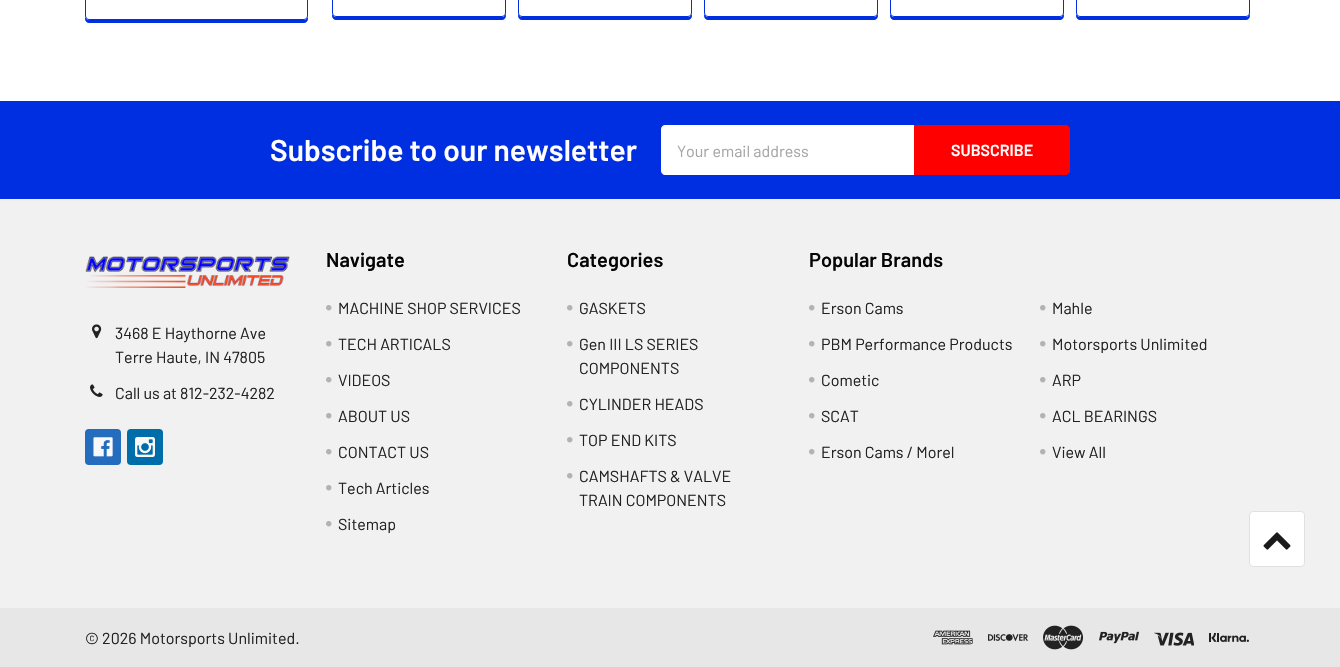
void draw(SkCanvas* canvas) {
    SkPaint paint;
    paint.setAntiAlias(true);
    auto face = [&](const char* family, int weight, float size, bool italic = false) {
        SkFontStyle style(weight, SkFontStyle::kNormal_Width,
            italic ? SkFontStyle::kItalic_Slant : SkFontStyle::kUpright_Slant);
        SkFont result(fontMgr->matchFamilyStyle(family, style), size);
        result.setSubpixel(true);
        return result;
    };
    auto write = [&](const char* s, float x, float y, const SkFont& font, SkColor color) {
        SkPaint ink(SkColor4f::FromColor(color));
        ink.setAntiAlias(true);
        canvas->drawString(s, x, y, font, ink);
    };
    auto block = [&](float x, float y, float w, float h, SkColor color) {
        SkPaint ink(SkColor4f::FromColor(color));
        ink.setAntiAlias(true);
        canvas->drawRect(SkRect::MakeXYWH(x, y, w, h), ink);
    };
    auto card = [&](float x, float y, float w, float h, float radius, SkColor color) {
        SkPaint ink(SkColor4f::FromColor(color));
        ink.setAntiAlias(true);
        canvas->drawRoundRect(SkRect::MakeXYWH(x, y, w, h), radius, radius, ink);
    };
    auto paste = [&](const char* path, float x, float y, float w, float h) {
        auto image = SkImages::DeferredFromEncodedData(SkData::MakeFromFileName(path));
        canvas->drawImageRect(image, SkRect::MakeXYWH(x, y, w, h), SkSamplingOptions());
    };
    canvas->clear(SK_ColorWHITE);
    paint.setColor(SkColorSetRGB(0, 47, 225));
    canvas->drawPath(SkPathBuilder().moveTo(85, 16).lineTo(85, 19).cubicTo(85, 21, 87, 23, 89, 23).lineTo(304, 23).cubicTo(306, 23, 308, 21, 308, 19).lineTo(308, 16).cubicTo(308, 18, 306, 20, 304, 20).lineTo(89, 20).cubicTo(87, 20, 85, 18, 85, 16).close().detach(), paint);
    paint.setColor(SK_ColorWHITE);
    canvas->drawRoundRect(SkRect::MakeXYWH(85.5f, -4.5f, 222, 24), 3.5f, 3.5f, paint);
    paint.setStyle(SkPaint::kStroke_Style);
    paint.setStrokeWidth(1);
    paint.setColor(SkColorSetRGB(0, 47, 225));
    canvas->drawRoundRect(SkRect::MakeXYWH(85.5f, -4.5f, 222, 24), 3.5f, 3.5f, paint);
    paint.setStyle(SkPaint::kFill_Style);
    canvas->drawPath(SkPathBuilder().moveTo(332, 13).lineTo(332, 16).cubicTo(332, 18, 334, 20, 336, 20).lineTo(502, 20).cubicTo(504, 20, 506, 18, 506, 16).lineTo(506, 13).cubicTo(506, 15, 504, 17, 502, 17).lineTo(336, 17).cubicTo(334, 17, 332, 15, 332, 13).close().detach(), paint);
    paint.setColor(SK_ColorWHITE);
    canvas->drawRoundRect(SkRect::MakeXYWH(332.5f, -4.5f, 173, 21), 3.5f, 3.5f, paint);
    paint.setStyle(SkPaint::kStroke_Style);
    paint.setColor(SkColorSetRGB(0, 47, 225));
    canvas->drawRoundRect(SkRect::MakeXYWH(332.5f, -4.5f, 173, 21), 3.5f, 3.5f, paint);
    paint.setStyle(SkPaint::kFill_Style);
    canvas->drawPath(SkPathBuilder().moveTo(518, 13).lineTo(518, 16).cubicTo(518, 18, 520, 20, 522, 20).lineTo(688, 20).cubicTo(690, 20, 692, 18, 692, 16).lineTo(692, 13).cubicTo(692, 15, 690, 17, 688, 17).lineTo(522, 17).cubicTo(520, 17, 518, 15, 518, 13).close().detach(), paint);
    paint.setColor(SK_ColorWHITE);
    canvas->drawRoundRect(SkRect::MakeXYWH(518.5f, -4.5f, 173, 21), 3.5f, 3.5f, paint);
    paint.setStyle(SkPaint::kStroke_Style);
    paint.setColor(SkColorSetRGB(0, 47, 225));
    canvas->drawRoundRect(SkRect::MakeXYWH(518.5f, -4.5f, 173, 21), 3.5f, 3.5f, paint);
    paint.setStyle(SkPaint::kFill_Style);
    canvas->drawPath(SkPathBuilder().moveTo(704, 13).lineTo(704, 16).cubicTo(704, 18, 706, 20, 708, 20).lineTo(874, 20).cubicTo(876, 20, 878, 18, 878, 16).lineTo(878, 13).cubicTo(878, 15, 876, 17, 874, 17).lineTo(708, 17).cubicTo(706, 17, 704, 15, 704, 13).close().detach(), paint);
    paint.setColor(SK_ColorWHITE);
    canvas->drawRoundRect(SkRect::MakeXYWH(704.5f, -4.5f, 173, 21), 3.5f, 3.5f, paint);
    paint.setStyle(SkPaint::kStroke_Style);
    paint.setColor(SkColorSetRGB(0, 47, 225));
    canvas->drawRoundRect(SkRect::MakeXYWH(704.5f, -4.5f, 173, 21), 3.5f, 3.5f, paint);
    paint.setStyle(SkPaint::kFill_Style);
    canvas->drawPath(SkPathBuilder().moveTo(890, 13).lineTo(890, 16).cubicTo(890, 18, 892, 20, 894, 20).lineTo(1060, 20).cubicTo(1062, 20, 1064, 18, 1064, 16).lineTo(1064, 13).cubicTo(1064, 15, 1062, 17, 1060, 17).lineTo(894, 17).cubicTo(892, 17, 890, 15, 890, 13).close().detach(), paint);
    paint.setColor(SK_ColorWHITE);
    canvas->drawRoundRect(SkRect::MakeXYWH(890.5f, -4.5f, 173, 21), 3.5f, 3.5f, paint);
    paint.setStyle(SkPaint::kStroke_Style);
    paint.setColor(SkColorSetRGB(0, 47, 225));
    canvas->drawRoundRect(SkRect::MakeXYWH(890.5f, -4.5f, 173, 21), 3.5f, 3.5f, paint);
    paint.setStyle(SkPaint::kFill_Style);
    canvas->drawPath(SkPathBuilder().moveTo(1076, 13).lineTo(1076, 16).cubicTo(1076, 18, 1078, 20, 1080, 20).lineTo(1246, 20).cubicTo(1248, 20, 1250, 18, 1250, 16).lineTo(1250, 13).cubicTo(1250, 15, 1248, 17, 1246, 17).lineTo(1080, 17).cubicTo(1078, 17, 1076, 15, 1076, 13).close().detach(), paint);
    paint.setColor(SK_ColorWHITE);
    canvas->drawRoundRect(SkRect::MakeXYWH(1076.5f, -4.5f, 173, 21), 3.5f, 3.5f, paint);
    paint.setStyle(SkPaint::kStroke_Style);
    paint.setColor(SkColorSetRGB(0, 47, 225));
    canvas->drawRoundRect(SkRect::MakeXYWH(1076.5f, -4.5f, 173, 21), 3.5f, 3.5f, paint);
    block(0, 199, 1340, 409, SkColorSetRGB(241, 241, 242));
    block(0, 101, 1340, 98, SkColorSetRGB(0, 47, 225));
    auto kFont1 = face("Barlow", 600, 30);
    write("Subscribe to our newsletter", 270, 161, kFont1, SK_ColorWHITE);
    paint.setStyle(SkPaint::kFill_Style);
    paint.setColor(SK_ColorWHITE);
    canvas->drawPath(SkPathBuilder().moveTo(665, 125).lineTo(914, 125).lineTo(914, 175).lineTo(665, 175).cubicTo(663, 175, 661, 173, 661, 171).lineTo(661, 129).cubicTo(661, 127, 663, 125, 665, 125).close().detach(), paint);
    auto kFont2 = face("Barlow", 400, 16);
    write("Your email address", 677, 157, kFont2, SkColorSetRGB(165, 165, 165));
    paint.setColor(SkColorSetRGB(255, 0, 0));
    canvas->drawPath(SkPathBuilder().moveTo(914.5f, 125.5f).lineTo(1066, 125.5f).cubicTo(1068, 125.5f, 1069.5f, 127, 1069.5f, 129).lineTo(1069.5f, 171).cubicTo(1069.5f, 173, 1068, 174.5f, 1066, 174.5f).lineTo(914.5f, 174.5f).close().detach(), paint);
    paint.setStyle(SkPaint::kStroke_Style);
    canvas->drawPath(SkPathBuilder().moveTo(914.5f, 125.5f).lineTo(1066, 125.5f).cubicTo(1068, 125.5f, 1069.5f, 127, 1069.5f, 129).lineTo(1069.5f, 171).cubicTo(1069.5f, 173, 1068, 174.5f, 1066, 174.5f).lineTo(914.5f, 174.5f).close().detach(), paint);
    auto kFont3 = face("Barlow", 600, 16);
    write("SUBSCRIBE", 951, 156, kFont3, SK_ColorWHITE);
    paste("pic1.png", 85, 256, 205, 32);
    paste("pic2.png", 92, 324, 10, 15);
    write("3468 E Haythorne Ave", 115, 339, kFont2, SkColorSetRGB(34, 34, 34));
    write("Terre Haute, IN 47805", 115, 363, kFont2, SkColorSetRGB(34, 34, 34));
    paste("pic3.png", 90, 384, 13, 13);
    write("Call us at 812-232-4282", 115, 399, kFont2, SkColorSetRGB(34, 34, 34));
    card(85, 429, 36, 36, 4, SkColorSetRGB(35, 108, 190));
    paste("pic4.png", 93, 437, 20, 20);
    card(127, 429, 36, 36, 4, SkColorSetRGB(0, 109, 171));
    paste("pic5.png", 135, 437, 20, 20);
    auto kFont4 = face("Barlow", 600, 20);
    write("Navigate", 326, 267, kFont4, SkColorSetRGB(5, 5, 5));
    paste("pic6.png", 326, 305, 6, 6);
    write("MACHINE SHOP SERVICES", 338, 314, kFont2, SkColorSetRGB(34, 34, 34));
    paste("pic6.png", 326, 341, 6, 6);
    write("TECH ARTICALS", 338, 350, kFont2, SkColorSetRGB(34, 34, 34));
    paste("pic6.png", 326, 377, 6, 6);
    write("VIDEOS", 338, 386, kFont2, SkColorSetRGB(34, 34, 34));
    paste("pic6.png", 326, 413, 6, 6);
    write("ABOUT US", 338, 422, kFont2, SkColorSetRGB(34, 34, 34));
    paste("pic6.png", 326, 449, 6, 6);
    write("CONTACT US", 338, 458, kFont2, SkColorSetRGB(34, 34, 34));
    paste("pic6.png", 326, 485, 6, 6);
    write("Tech Articles", 338, 494, kFont2, SkColorSetRGB(34, 34, 34));
    paste("pic6.png", 326, 521, 6, 6);
    write("Sitemap", 338, 530, kFont2, SkColorSetRGB(34, 34, 34));
    write("Categories", 567, 267, kFont4, SkColorSetRGB(5, 5, 5));
    paste("pic6.png", 567, 305, 6, 6);
    write("GASKETS", 579, 314, kFont2, SkColorSetRGB(34, 34, 34));
    paste("pic6.png", 567, 341, 6, 6);
    write("Gen III LS SERIES", 579, 350, kFont2, SkColorSetRGB(34, 34, 34));
    write("COMPONENTS", 579, 374, kFont2, SkColorSetRGB(34, 34, 34));
    paste("pic6.png", 567, 401, 6, 6);
    write("CYLINDER HEADS", 579, 410, kFont2, SkColorSetRGB(34, 34, 34));
    paste("pic6.png", 567, 437, 6, 6);
    write("TOP END KITS", 579, 446, kFont2, SkColorSetRGB(34, 34, 34));
    paste("pic6.png", 567, 473, 6, 6);
    write("CAMSHAFTS & VALVE", 579, 482, kFont2, SkColorSetRGB(34, 34, 34));
    write("TRAIN COMPONENTS", 579, 506, kFont2, SkColorSetRGB(34, 34, 34));
    write("Popular Brands", 809, 267, kFont4, SkColorSetRGB(5, 5, 5));
    paste("pic6.png", 809, 305, 6, 6);
    write("Erson Cams", 821, 314, kFont2, SkColorSetRGB(34, 34, 34));
    paste("pic6.png", 1040, 305, 6, 6);
    write("Mahle", 1052, 314, kFont2, SkColorSetRGB(34, 34, 34));
    paste("pic6.png", 809, 341, 6, 6);
    write("PBM Performance Products", 821, 350, kFont2, SkColorSetRGB(34, 34, 34));
    paste("pic6.png", 1040, 341, 6, 6);
    write("Motorsports Unlimited", 1052, 350, kFont2, SkColorSetRGB(34, 34, 34));
    paste("pic6.png", 809, 377, 6, 6);
    write("Cometic", 821, 386, kFont2, SkColorSetRGB(34, 34, 34));
    paste("pic6.png", 1040, 377, 6, 6);
    write("ARP", 1052, 386, kFont2, SkColorSetRGB(34, 34, 34));
    paste("pic6.png", 809, 413, 6, 6);
    write("SCAT", 821, 422, kFont2, SkColorSetRGB(34, 34, 34));
    paste("pic6.png", 1040, 413, 6, 6);
    write("ACL BEARINGS", 1052, 422, kFont2, SkColorSetRGB(34, 34, 34));
    paste("pic6.png", 809, 449, 6, 6);
    write("Erson Cams / Morel", 821, 458, kFont2, SkColorSetRGB(34, 34, 34));
    paste("pic6.png", 1040, 449, 6, 6);
    write("View All", 1052, 458, kFont2, SkColorSetRGB(34, 34, 34));
    block(0, 608, 1340, 59, SkColorSetRGB(231, 231, 232));
    write("© 2026 Motorsports Unlimited.", 85, 644, kFont2, SkColorSetRGB(34, 34, 34));
    paste("pic7.png", 933, 630, 40, 15);
    paste("pic8.png", 988, 634, 40, 7);
    paste("pic9.png", 1043, 625, 40, 25);
    paste("pic10.png", 1099, 631, 40, 13);
    paste("pic11.png", 1154, 632, 40, 14);
    paste("pic12.png", 1209, 633, 40, 9);
    paint.setStyle(SkPaint::kFill_Style);
    paint.setColor(SK_ColorWHITE);
    canvas->drawRoundRect(SkRect::MakeXYWH(1249.5f, 511.5f, 55, 55), 3.5f, 3.5f, paint);
    paint.setStyle(SkPaint::kStroke_Style);
    paint.setColor(SkColorSetRGB(224, 225, 228));
    canvas->drawRoundRect(SkRect::MakeXYWH(1249.5f, 511.5f, 55, 55), 3.5f, 3.5f, paint);
    paste("pic13.png", 1263, 532, 28, 18);
}
